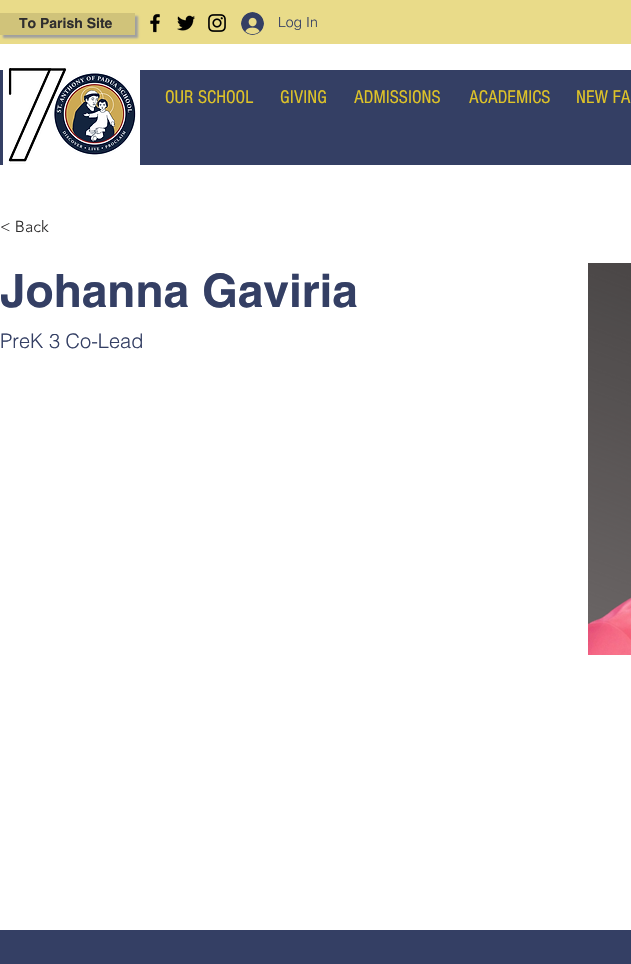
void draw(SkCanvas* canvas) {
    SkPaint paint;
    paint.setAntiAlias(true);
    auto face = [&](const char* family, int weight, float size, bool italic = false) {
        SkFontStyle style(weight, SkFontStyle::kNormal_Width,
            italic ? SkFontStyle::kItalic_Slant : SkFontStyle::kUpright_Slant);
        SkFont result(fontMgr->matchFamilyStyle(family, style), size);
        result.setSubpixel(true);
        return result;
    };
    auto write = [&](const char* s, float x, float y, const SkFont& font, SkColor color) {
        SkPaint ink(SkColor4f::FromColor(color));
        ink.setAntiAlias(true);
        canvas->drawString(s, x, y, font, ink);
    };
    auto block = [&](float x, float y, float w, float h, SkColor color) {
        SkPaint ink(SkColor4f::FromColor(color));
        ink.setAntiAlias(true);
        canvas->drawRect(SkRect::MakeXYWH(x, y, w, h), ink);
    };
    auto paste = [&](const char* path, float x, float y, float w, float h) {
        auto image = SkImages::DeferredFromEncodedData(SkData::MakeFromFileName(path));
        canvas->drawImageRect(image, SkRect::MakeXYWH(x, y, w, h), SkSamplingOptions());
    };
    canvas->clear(SK_ColorWHITE);
    block(0, 0, 631, 44, SkColorSetRGB(233, 219, 137));
    paint.setColor(SkColorSetRGB(160, 160, 159));
    paint.setMaskFilter(SkMaskFilter::MakeBlur(kNormal_SkBlurStyle, 1));
    canvas->drawRect(SkRect::MakeXYWH(3, 16, 135, 22), paint);
    paint.setMaskFilter(nullptr);
    block(0, 13, 135, 22, SkColorSetRGB(208, 195, 122));
    auto kFont1 = face("helvetica", 700, 14);
    write("To Parish Site", 19, 28, kFont1, SkColorSetRGB(47, 46, 46));
    paste("pic1.png", 150, 13, 10, 20);
    paste("pic2.png", 177, 15, 18, 16);
    paste("pic3.png", 208, 14, 18, 18);
    paste("pic4.png", 241, 12, 23, 23);
    auto kFont2 = face("helvetica", 300, 14);
    write("Log In", 278, 27, kFont2, SkColorSetRGB(52, 63, 100));
    block(0, 70, 631, 95, SkColorSetRGB(52, 63, 100));
    block(3, 70, 137, 95, SK_ColorWHITE);
    paste("pic5.png", 8, 68, 128, 96);
    auto kFont3 = face("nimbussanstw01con", 400, 19);
    write("OUR SCHOOL", 165, 103, kFont3, SkColorSetRGB(222, 195, 40));
    write("GIVING", 280, 103, kFont3, SkColorSetRGB(222, 195, 40));
    write("ADMISSIONS", 354, 103, kFont3, SkColorSetRGB(222, 195, 40));
    write("ACADEMICS", 469, 103, kFont3, SkColorSetRGB(222, 195, 40));
    write("NEW FA", 576, 103, kFont3, SkColorSetRGB(222, 195, 40));
    auto kFont4 = face("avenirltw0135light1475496", 300, 16);
    write("< Back", 0, 232, kFont4, SkColorSetRGB(47, 46, 46));
    auto kFont5 = face("helvetica", 700, 46);
    write("Johanna Gaviria", 0, 307, kFont5, SkColorSetRGB(52, 63, 100));
    auto kFont6 = face("helvetica", 300, 20);
    write("PreK 3 Co-Lead", 0, 348, kFont6, SkColorSetRGB(52, 63, 100));
    paste("pic6.png", 588, 263, 43, 392);
    block(0, 930, 631, 34, SkColorSetRGB(52, 63, 100));
}
